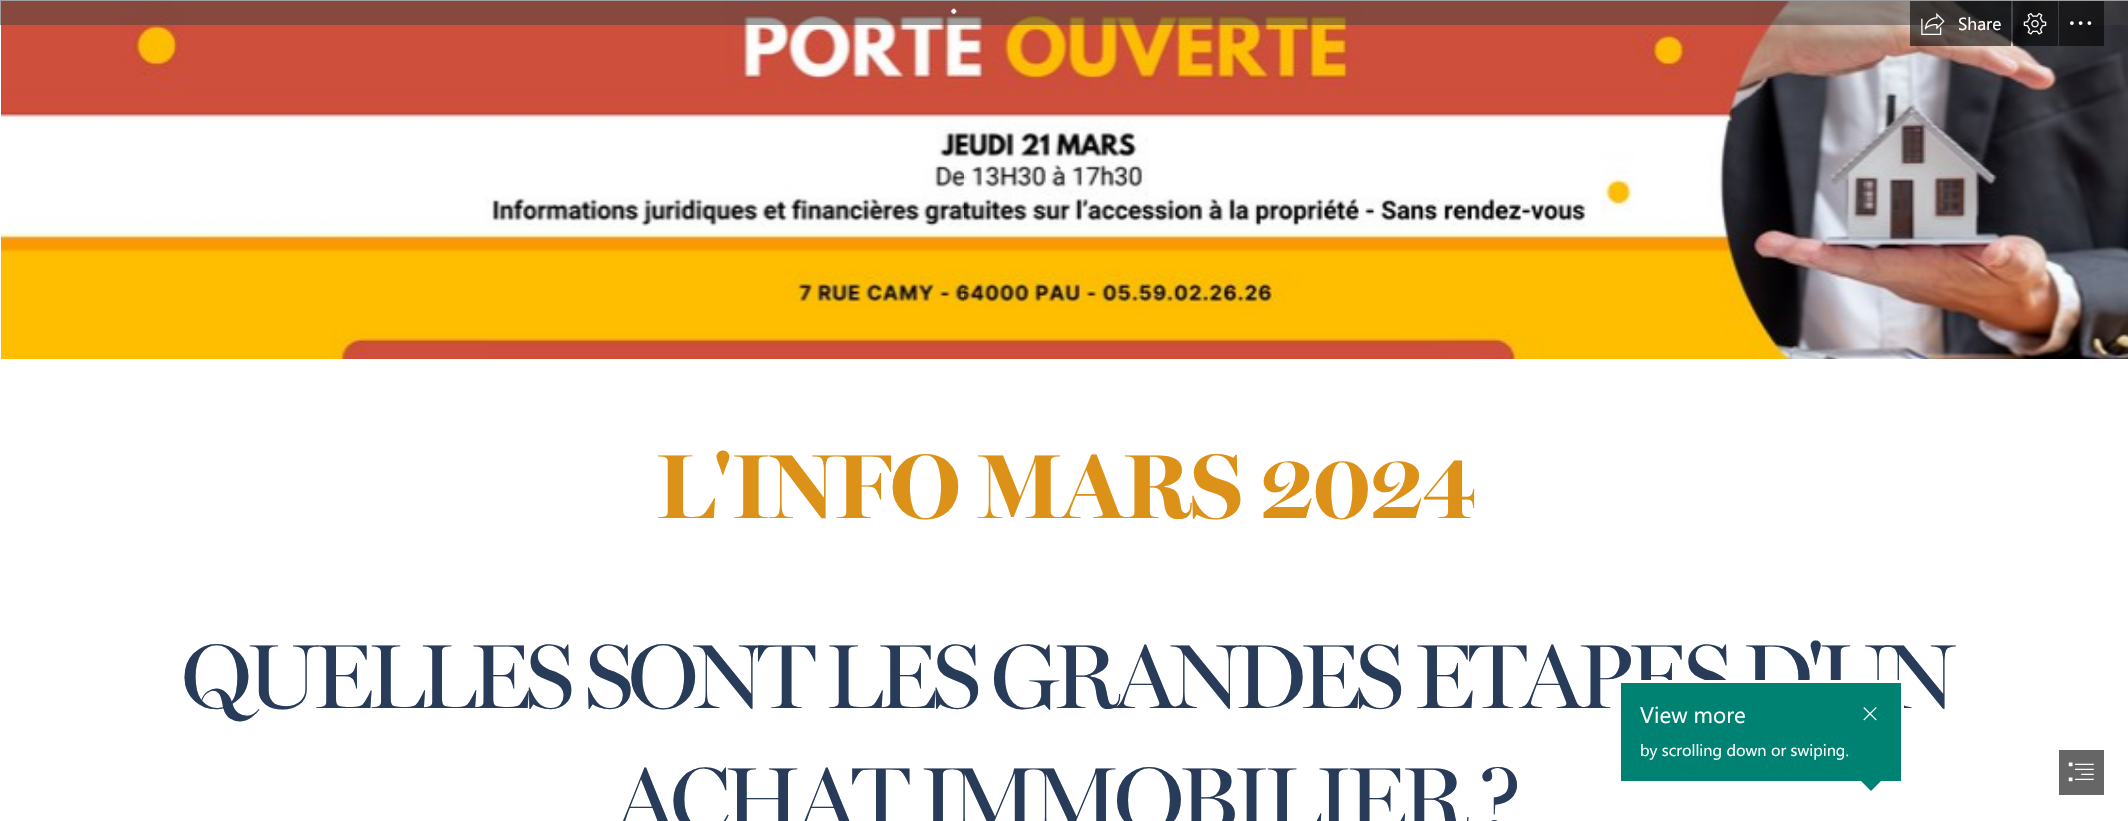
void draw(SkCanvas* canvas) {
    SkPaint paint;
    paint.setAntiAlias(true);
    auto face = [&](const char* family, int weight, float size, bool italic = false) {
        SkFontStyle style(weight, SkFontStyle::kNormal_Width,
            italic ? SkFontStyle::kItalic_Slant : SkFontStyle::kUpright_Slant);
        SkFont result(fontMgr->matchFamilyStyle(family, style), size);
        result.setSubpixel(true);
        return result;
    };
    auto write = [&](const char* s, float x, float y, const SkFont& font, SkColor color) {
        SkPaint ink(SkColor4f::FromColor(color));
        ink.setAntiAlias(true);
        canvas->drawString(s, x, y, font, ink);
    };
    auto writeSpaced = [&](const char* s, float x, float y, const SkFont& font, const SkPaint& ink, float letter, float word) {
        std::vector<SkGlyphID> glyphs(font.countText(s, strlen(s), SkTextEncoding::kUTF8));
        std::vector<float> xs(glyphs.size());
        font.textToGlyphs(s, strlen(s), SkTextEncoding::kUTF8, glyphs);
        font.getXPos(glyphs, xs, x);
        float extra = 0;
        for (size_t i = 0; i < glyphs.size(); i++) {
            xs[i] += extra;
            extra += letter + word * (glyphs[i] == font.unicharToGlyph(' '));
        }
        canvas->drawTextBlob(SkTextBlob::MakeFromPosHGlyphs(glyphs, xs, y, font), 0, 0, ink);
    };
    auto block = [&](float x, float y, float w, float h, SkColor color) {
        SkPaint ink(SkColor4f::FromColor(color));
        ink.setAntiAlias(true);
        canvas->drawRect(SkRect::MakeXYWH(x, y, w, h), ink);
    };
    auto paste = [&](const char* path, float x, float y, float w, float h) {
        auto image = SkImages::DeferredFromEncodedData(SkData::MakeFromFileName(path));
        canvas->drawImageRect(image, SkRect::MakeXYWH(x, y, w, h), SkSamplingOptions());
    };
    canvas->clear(SK_ColorWHITE);
    paste("pic5.png", 1, 1, 2127, 358);
    block(0, 0, 2128, 25, SkColorSetARGB(128, 64, 64, 64));
    block(1910, 1, 101, 45, SkColorSetARGB(153, 0, 0, 0));
    paste("pic1.png", 1921, 13, 24, 22);
    auto kFont1 = face("Segoe UI", 400, 17.5f);
    write("Share", 1958, 30, kFont1, SK_ColorWHITE);
    block(2013, 1, 45, 45, SkColorSetARGB(153, 0, 0, 0));
    paste("pic2.png", 2023, 12, 24, 23);
    block(2059, 1, 45, 45, SkColorSetARGB(153, 0, 0, 0));
    paste("pic3.png", 2070, 21, 22, 4);
    paste("pic4.png", 951, 8, 6, 6);
    auto kFont2 = face("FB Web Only", 700, 91.5f);
    paint.setColor(SkColorSetRGB(220, 145, 24));
    writeSpaced("L'INFO MARS 2024", 657, 518, kFont2, paint, -0.25f, 0);
    auto kFont3 = face("FB Web Only", 400, 91.5f);
    paint.setColor(SkColorSetRGB(40, 60, 89));
    writeSpaced("QUELLES SONT LES GRANDES ETAPES D'UN", 181, 708, kFont3, paint, -6.2f, 0);
    writeSpaced("ACHAT IMMOBILIER ?", 614, 831, kFont3, paint, -6.2f, 0);
    paint.setColor(SkColorSetRGB(0, 130, 114));
    canvas->drawRect(SkRect::MakeXYWH(1619.5f, 681.5f, 283, 101), paint);
    paint.setStyle(SkPaint::kStroke_Style);
    paint.setStrokeWidth(3);
    paint.setColor(SK_ColorWHITE);
    canvas->drawRect(SkRect::MakeXYWH(1619.5f, 681.5f, 283, 101), paint);
    auto kFont4 = face("Segoe UI", 400, 22.5f);
    write("View more", 1640, 723, kFont4, SK_ColorWHITE);
    auto kFont5 = face("Segoe UI", 400, 16.25f);
    write("by scrolling down or swiping.", 1640, 756, kFont5, SK_ColorWHITE);
    paste("pic6.png", 1863, 707, 14, 14);
    paint.setStyle(SkPaint::kFill_Style);
    paint.setColor(SkColorSetRGB(0, 130, 114));
    canvas->drawPath(SkPathBuilder().moveTo(1861, 781).lineTo(1881, 781).lineTo(1871, 791).close().detach(), paint);
    block(2059, 750, 45, 45, SkColorSetRGB(102, 102, 102));
    paste("pic7.png", 2068, 762, 26, 20);
}
